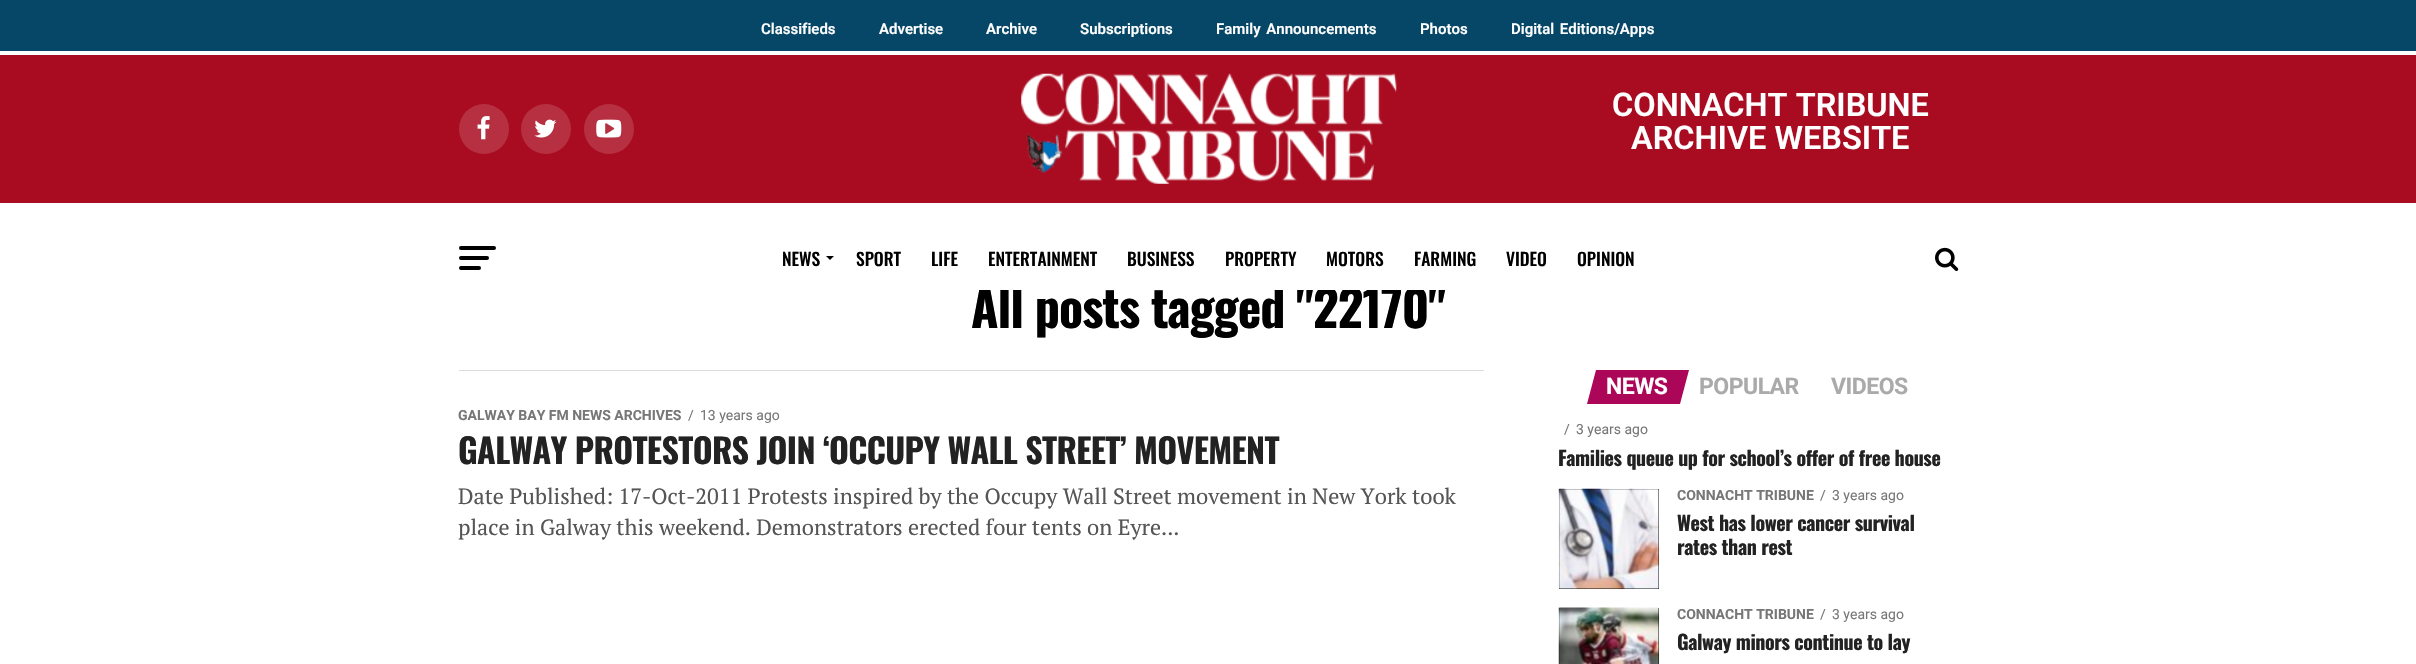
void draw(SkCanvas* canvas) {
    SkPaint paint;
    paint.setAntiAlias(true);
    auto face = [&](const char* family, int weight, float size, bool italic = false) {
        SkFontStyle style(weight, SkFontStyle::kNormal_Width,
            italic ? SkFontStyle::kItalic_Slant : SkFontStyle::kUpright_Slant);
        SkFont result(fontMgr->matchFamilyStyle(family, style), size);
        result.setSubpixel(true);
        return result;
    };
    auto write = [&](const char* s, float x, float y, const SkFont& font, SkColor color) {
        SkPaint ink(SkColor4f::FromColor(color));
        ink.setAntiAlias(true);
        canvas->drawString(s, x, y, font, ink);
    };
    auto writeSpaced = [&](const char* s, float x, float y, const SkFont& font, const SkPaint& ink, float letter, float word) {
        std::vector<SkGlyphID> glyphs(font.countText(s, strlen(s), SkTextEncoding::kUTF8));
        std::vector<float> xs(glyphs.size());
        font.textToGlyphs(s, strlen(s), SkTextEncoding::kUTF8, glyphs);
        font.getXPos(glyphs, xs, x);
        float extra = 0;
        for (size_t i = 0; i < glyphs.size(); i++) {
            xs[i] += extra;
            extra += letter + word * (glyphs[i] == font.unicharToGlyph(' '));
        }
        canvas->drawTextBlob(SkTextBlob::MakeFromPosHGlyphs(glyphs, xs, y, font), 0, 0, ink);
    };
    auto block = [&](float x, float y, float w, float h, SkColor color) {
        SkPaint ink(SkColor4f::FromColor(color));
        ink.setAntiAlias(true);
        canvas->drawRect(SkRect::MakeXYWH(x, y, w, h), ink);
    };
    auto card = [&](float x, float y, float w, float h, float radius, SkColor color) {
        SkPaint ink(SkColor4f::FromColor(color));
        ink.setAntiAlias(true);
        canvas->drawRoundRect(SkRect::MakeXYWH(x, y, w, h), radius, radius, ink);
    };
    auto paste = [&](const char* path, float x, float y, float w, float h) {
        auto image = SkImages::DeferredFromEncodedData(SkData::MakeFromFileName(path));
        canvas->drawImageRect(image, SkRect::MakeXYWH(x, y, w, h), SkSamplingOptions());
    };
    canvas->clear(SK_ColorWHITE);
    block(0, 0, 2416, 51, SkColorSetRGB(6, 70, 103));
    auto kFont1 = face("Roboto", 600, 15);
    write("Classifieds", 761, 34, kFont1, SK_ColorWHITE);
    write("Advertise", 879, 34, kFont1, SK_ColorWHITE);
    write("Archive", 986, 34, kFont1, SK_ColorWHITE);
    write("Subscriptions", 1080, 34, kFont1, SK_ColorWHITE);
    paint.setColor(SK_ColorWHITE);
    writeSpaced("Family Announcements", 1216, 34, kFont1, paint, 0, 2);
    write("Photos", 1420, 34, kFont1, SK_ColorWHITE);
    writeSpaced("Digital Editions/Apps", 1511, 34, kFont1, paint, 0, 2);
    block(0, 55, 2416, 148, SkColorSetRGB(169, 12, 33));
    paint.setColor(SkColorSetRGB(182, 48, 66));
    canvas->drawCircle(484, 129, 25, paint);
    paste("pic1.png", 477, 116, 13, 24);
    canvas->drawCircle(546, 129, 25, paint);
    paste("pic2.png", 534, 119, 23, 19);
    canvas->drawCircle(609, 129, 25, paint);
    paste("pic3.png", 596, 119, 26, 19);
    paste("pic4.png", 1021, 73, 376, 111);
    auto kFont2 = face("Roboto", 600, 32.5f);
    write("CONNACHT TRIBUNE", 1612, 116, kFont2, SK_ColorWHITE);
    write("ARCHIVE WEBSITE", 1631, 149, kFont2, SK_ColorWHITE);
    auto kFont3 = face("Oswald", 700, 50);
    paint.setColor(SK_ColorBLACK);
    writeSpaced("All posts tagged \"22170\"", 971, 328, kFont3, paint, -1, 0);
    block(979, 286, 467, 4, SK_ColorWHITE);
    card(459, 246, 37, 4, 2, SK_ColorBLACK);
    card(459, 256, 30, 4, 2, SK_ColorBLACK);
    card(459, 266, 22, 4, 2, SK_ColorBLACK);
    auto kFont4 = face("Oswald", 500, 17.5f);
    write("NEWS", 782, 266, kFont4, SK_ColorBLACK);
    canvas->drawPath(SkPathBuilder().moveTo(826, 256).lineTo(834, 256).lineTo(830, 260).close().detach(), paint);
    write("SPORT", 856, 266, kFont4, SK_ColorBLACK);
    write("LIFE", 931, 266, kFont4, SK_ColorBLACK);
    write("ENTERTAINMENT", 988, 266, kFont4, SK_ColorBLACK);
    write("BUSINESS", 1127, 266, kFont4, SK_ColorBLACK);
    write("PROPERTY", 1225, 266, kFont4, SK_ColorBLACK);
    write("MOTORS", 1326, 266, kFont4, SK_ColorBLACK);
    write("FARMING", 1414, 266, kFont4, SK_ColorBLACK);
    write("VIDEO", 1506, 266, kFont4, SK_ColorBLACK);
    write("OPINION", 1577, 266, kFont4, SK_ColorBLACK);
    paste("pic5.png", 1935, 247, 24, 25);
    block(459, 370, 1025, 1, SkColorSetRGB(221, 221, 221));
    auto kFont5 = face("Roboto", 700, 14);
    write("GALWAY BAY FM NEWS ARCHIVES", 458, 420, kFont5, SkColorSetRGB(119, 119, 119));
    auto kFont6 = face("Roboto", 400, 14);
    write("/", 688, 420, kFont6, SkColorSetRGB(119, 119, 119));
    write("13 years ago", 700, 420, kFont6, SkColorSetRGB(119, 119, 119));
    auto kFont7 = face("Oswald", 700, 34);
    paint.setColor(SkColorSetRGB(34, 34, 34));
    writeSpaced("GALWAY PROTESTORS JOIN ‘OCCUPY WALL STREET’ MOVEMENT", 458, 464, kFont7, paint, -0.68f, 0);
    auto kFont8 = face("PT Serif", 400, 22);
    write("Date Published: 17-Oct-2011 Protests inspired by the Occupy Wall Street movement in New York took", 458, 504, kFont8, SkColorSetRGB(85, 85, 85));
    write("place in Galway this weekend. Demonstrators erected four tents on Eyre...", 458, 535, kFont8, SkColorSetRGB(85, 85, 85));
    paint.setColor(SkColorSetRGB(171, 6, 88));
    canvas->drawPath(SkPathBuilder().moveTo(1596, 370).lineTo(1689, 370).lineTo(1680, 404).lineTo(1587, 404).close().detach(), paint);
    auto kFont9 = face("Roboto", 700, 23);
    paint.setColor(SK_ColorWHITE);
    writeSpaced("NEWS", 1606, 394, kFont9, paint, -0.5f, 0);
    paint.setColor(SkColorSetRGB(170, 170, 170));
    writeSpaced("POPULAR", 1699, 394, kFont9, paint, -0.5f, 0);
    writeSpaced("VIDEOS", 1831, 394, kFont9, paint, -0.5f, 0);
    write("/", 1564, 434, kFont6, SkColorSetRGB(119, 119, 119));
    write("3 years ago", 1576, 434, kFont6, SkColorSetRGB(119, 119, 119));
    auto kFont10 = face("Oswald", 700, 20);
    paint.setColor(SkColorSetRGB(34, 34, 34));
    writeSpaced("Families queue up for school’s offer of free house", 1558, 466, kFont10, paint, -0.4f, 0);
    block(1559, 489, 100, 100, SK_ColorBLACK);
    paste("pic6.png", 1558, 488, 102, 102);
    write("CONNACHT TRIBUNE", 1677, 500, kFont5, SkColorSetRGB(119, 119, 119));
    write("/", 1820, 500, kFont6, SkColorSetRGB(119, 119, 119));
    write("3 years ago", 1832, 500, kFont6, SkColorSetRGB(119, 119, 119));
    writeSpaced("West has lower cancer survival", 1677, 531, kFont10, paint, -0.4f, 0);
    writeSpaced("rates than rest", 1677, 555, kFont10, paint, -0.4f, 0);
    block(1559, 608, 100, 56, SK_ColorBLACK);
    paste("pic7.png", 1558, 607, 102, 57);
    write("CONNACHT TRIBUNE", 1677, 619, kFont5, SkColorSetRGB(119, 119, 119));
    write("/", 1820, 619, kFont6, SkColorSetRGB(119, 119, 119));
    write("3 years ago", 1832, 619, kFont6, SkColorSetRGB(119, 119, 119));
    writeSpaced("Galway minors continue to lay", 1677, 650, kFont10, paint, -0.4f, 0);
}
